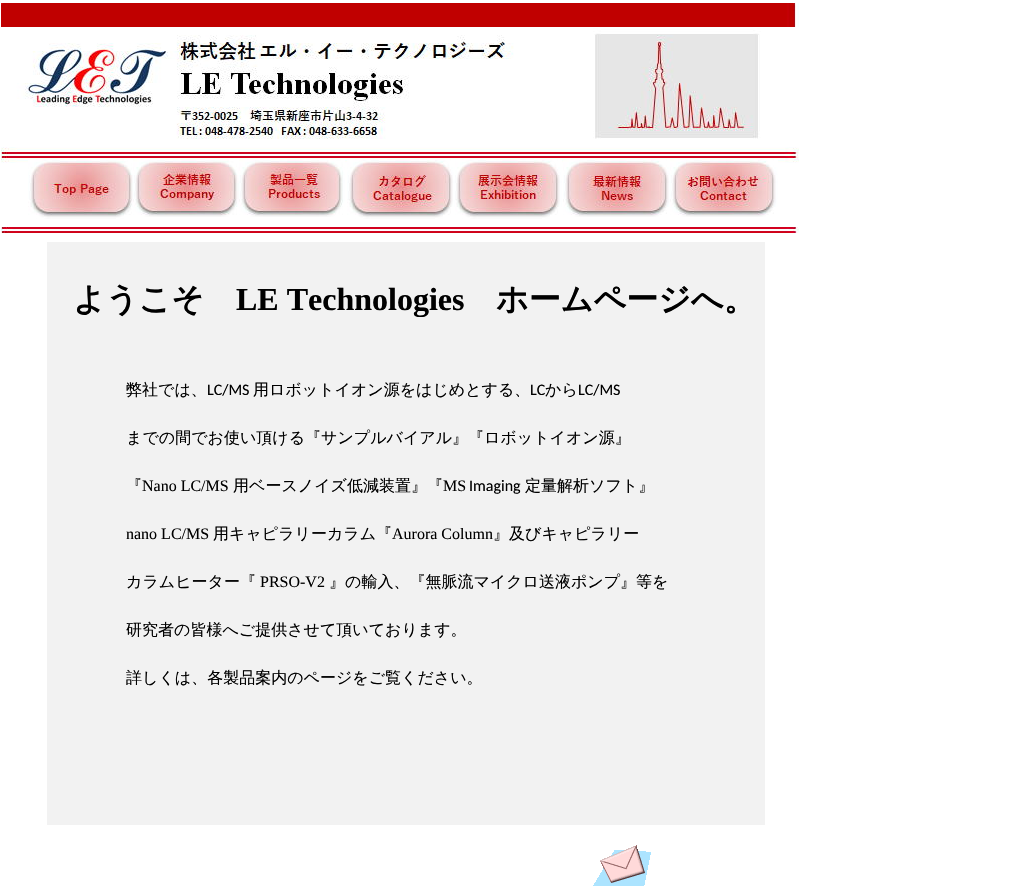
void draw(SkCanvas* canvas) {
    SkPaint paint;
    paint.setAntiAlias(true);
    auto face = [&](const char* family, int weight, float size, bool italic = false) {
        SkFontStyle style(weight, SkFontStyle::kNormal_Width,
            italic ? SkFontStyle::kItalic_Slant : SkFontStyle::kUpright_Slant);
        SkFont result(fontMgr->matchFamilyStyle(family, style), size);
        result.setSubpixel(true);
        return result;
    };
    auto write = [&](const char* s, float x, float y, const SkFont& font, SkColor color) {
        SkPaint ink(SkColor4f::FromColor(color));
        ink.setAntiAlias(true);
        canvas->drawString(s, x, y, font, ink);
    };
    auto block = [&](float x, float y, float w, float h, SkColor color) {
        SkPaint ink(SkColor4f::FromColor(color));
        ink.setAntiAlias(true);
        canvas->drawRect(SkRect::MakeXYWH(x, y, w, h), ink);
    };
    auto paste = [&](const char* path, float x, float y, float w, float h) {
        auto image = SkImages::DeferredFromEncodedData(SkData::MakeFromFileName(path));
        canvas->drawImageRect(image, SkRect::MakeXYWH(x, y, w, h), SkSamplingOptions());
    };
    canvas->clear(SK_ColorWHITE);
    paste("pic1.png", 1, 3, 798, 230);
    paste("pic2.png", 28, 159, 107, 60);
    paste("pic3.png", 133, 159, 106, 58);
    paste("pic4.png", 239, 159, 106, 58);
    paste("pic5.png", 347, 159, 108, 60);
    paste("pic6.png", 455, 159, 107, 60);
    paste("pic7.png", 563, 159, 107, 58);
    paste("pic8.png", 670, 159, 108, 58);
    block(47, 242, 718, 583, SkColorSetRGB(242, 242, 242));
    auto kFont1 = face("WenQuanYi Zen Hei", 700, 32);
    write("ようこそ", 73, 310, kFont1, SK_ColorBLACK);
    auto kFont2 = face("Liberation Serif", 700, 32);
    write("LE Technologies", 236, 310, kFont2, SK_ColorBLACK);
    write("ホームページへ。", 496, 310, kFont1, SK_ColorBLACK);
    auto kFont3 = face("WenQuanYi Zen Hei", 500, 16);
    write("弊社では、", 126, 395, kFont3, SK_ColorBLACK);
    auto kFont4 = face("Carlito", 400, 16);
    write("LC/MS", 207, 395, kFont4, SK_ColorBLACK);
    write("用ロボットイオン源をはじめとする、", 253, 395, kFont3, SK_ColorBLACK);
    write("LC", 530, 395, kFont4, SK_ColorBLACK);
    write("から", 545, 395, kFont3, SK_ColorBLACK);
    write("LC/MS", 578, 395, kFont4, SK_ColorBLACK);
    write("までの間でお使い頂ける『サンプルバイアル』『ロボットイオン源』", 126, 443, kFont3, SK_ColorBLACK);
    write("『", 126, 491, kFont3, SK_ColorBLACK);
    auto kFont5 = face("Liberation Serif", 400, 16);
    write("Nano LC/MS", 142, 491, kFont5, SK_ColorBLACK);
    write("用ベースノイズ低減装置』『", 233, 491, kFont3, SK_ColorBLACK);
    write("MS", 443, 491, kFont5, SK_ColorBLACK);
    write("Imaging", 469, 491, kFont4, SK_ColorBLACK);
    write("定量解析ソフト』", 525, 491, kFont3, SK_ColorBLACK);
    write("nano LC/MS", 126, 539, kFont5, SK_ColorBLACK);
    write("用キャピラリーカラム『", 213, 539, kFont3, SK_ColorBLACK);
    write("Aurora Column", 392, 539, kFont5, SK_ColorBLACK);
    write("』及びキャピラリー", 493, 539, kFont3, SK_ColorBLACK);
    write("カラムヒーター『", 126, 587, kFont3, SK_ColorBLACK);
    write("PRSO-V2", 260, 587, kFont5, SK_ColorBLACK);
    write("』の輸入、『無脈流マイクロ送液ポンプ』等を", 329, 587, kFont3, SK_ColorBLACK);
    write("研究者の皆様へご提供させて頂いております。", 126, 635, kFont3, SK_ColorBLACK);
    write("詳しくは、各製品案内のページをご覧ください。", 126, 683, kFont3, SK_ColorBLACK);
    paste("pic9.png", 593, 845, 58, 41);
}
